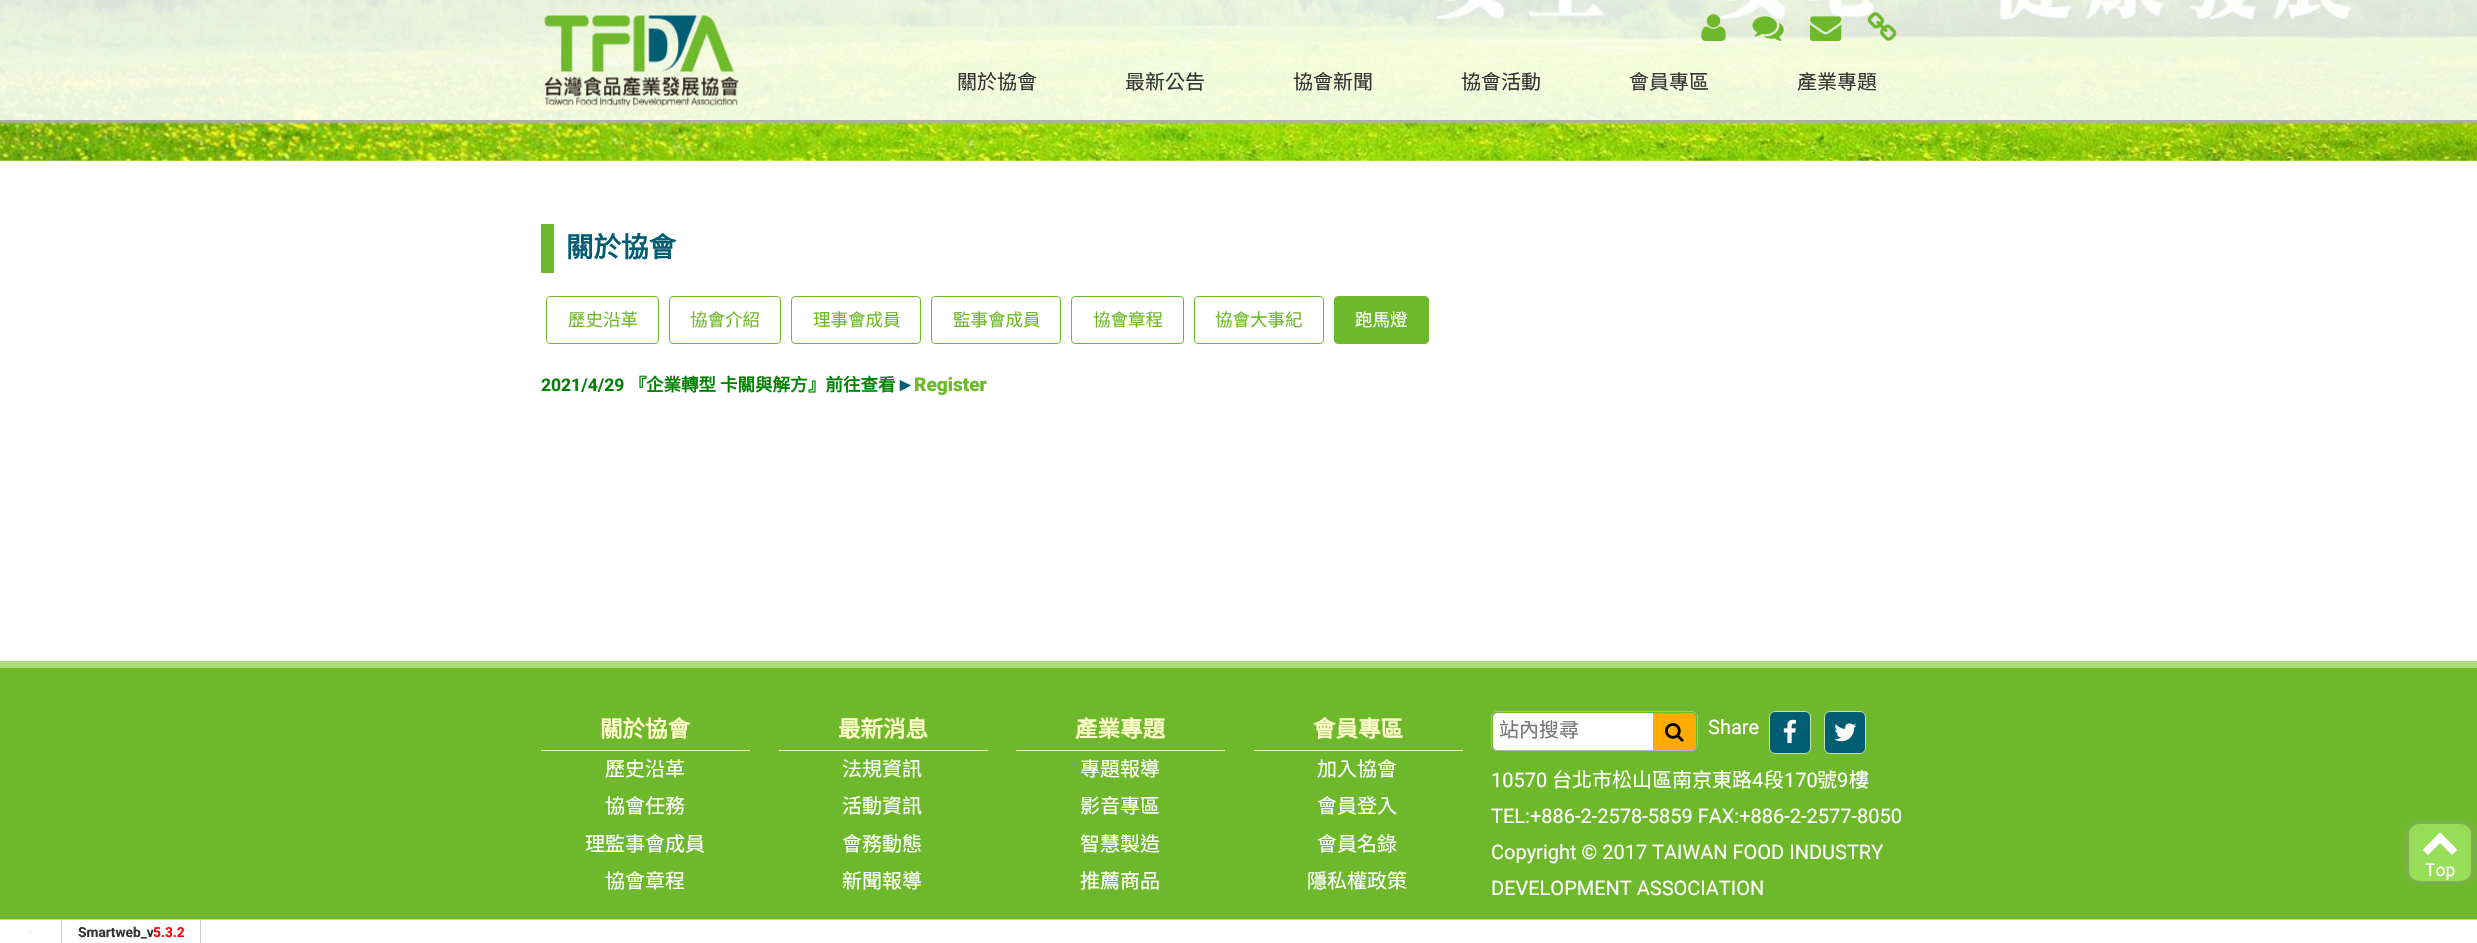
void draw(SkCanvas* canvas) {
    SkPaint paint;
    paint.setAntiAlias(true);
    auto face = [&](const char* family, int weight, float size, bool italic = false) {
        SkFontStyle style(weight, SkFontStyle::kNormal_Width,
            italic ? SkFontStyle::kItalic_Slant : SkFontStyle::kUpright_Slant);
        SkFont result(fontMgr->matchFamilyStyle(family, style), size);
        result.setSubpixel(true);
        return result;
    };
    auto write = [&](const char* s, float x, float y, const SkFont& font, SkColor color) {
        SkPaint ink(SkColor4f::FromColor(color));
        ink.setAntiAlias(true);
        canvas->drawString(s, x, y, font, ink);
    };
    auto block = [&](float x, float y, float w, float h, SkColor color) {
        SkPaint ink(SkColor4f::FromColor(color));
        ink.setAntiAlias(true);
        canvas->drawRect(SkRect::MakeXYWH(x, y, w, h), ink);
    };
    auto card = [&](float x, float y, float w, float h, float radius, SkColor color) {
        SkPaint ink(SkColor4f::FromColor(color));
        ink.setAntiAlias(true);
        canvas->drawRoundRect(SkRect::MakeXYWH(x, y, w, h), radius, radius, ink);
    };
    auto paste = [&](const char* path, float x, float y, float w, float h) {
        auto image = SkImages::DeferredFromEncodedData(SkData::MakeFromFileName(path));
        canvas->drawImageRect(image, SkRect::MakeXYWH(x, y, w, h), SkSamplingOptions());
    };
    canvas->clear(SK_ColorWHITE);
    paste("pic1.png", 0, 0, 2477, 161);
    canvas->save();
    canvas->clipRect(SkRect::MakeXYWH(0, 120, 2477, 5));
    paint.setColor(SkColorSetRGB(175, 175, 175));
    paint.setMaskFilter(SkMaskFilter::MakeBlur(kNormal_SkBlurStyle, 1));
    canvas->drawRect(SkRect::MakeXYWH(0, 3, 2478, 120), paint);
    paint.setMaskFilter(nullptr);
    canvas->restore();
    block(0, 0, 2477, 120, SkColorSetARGB(217, 255, 255, 255));
    paste("pic2.png", 544, 15, 195, 92);
    paste("pic3.png", 1701, 14, 25, 27);
    paste("pic4.png", 1752, 16, 32, 25);
    paste("pic5.png", 1810, 16, 32, 25);
    paste("pic6.png", 1867, 12, 30, 29);
    auto kFont1 = face("Noto Sans CJK TC", 400, 20);
    write("關於協會", 957, 89, kFont1, SkColorSetRGB(51, 51, 51));
    write("最新公告", 1125, 89, kFont1, SkColorSetRGB(51, 51, 51));
    write("協會新聞", 1293, 89, kFont1, SkColorSetRGB(51, 51, 51));
    write("協會活動", 1461, 89, kFont1, SkColorSetRGB(51, 51, 51));
    write("會員專區", 1629, 89, kFont1, SkColorSetRGB(51, 51, 51));
    write("產業專題", 1797, 89, kFont1, SkColorSetRGB(51, 51, 51));
    block(541, 224, 13, 49, SkColorSetRGB(110, 185, 43));
    auto kFont2 = face("Noto Sans CJK TC", 700, 27.5f);
    write("關於協會", 566, 257, kFont2, SkColorSetRGB(0, 93, 115));
    paint.setStyle(SkPaint::kStroke_Style);
    paint.setStrokeWidth(1);
    paint.setColor(SkColorSetRGB(110, 185, 43));
    canvas->drawRoundRect(SkRect::MakeXYWH(546.5f, 296.5f, 112, 47), 3.5f, 3.5f, paint);
    auto kFont3 = face("Noto Sans CJK TC", 400, 17.5f);
    write("歷史沿革", 568, 326, kFont3, SkColorSetRGB(110, 185, 43));
    canvas->drawRoundRect(SkRect::MakeXYWH(669.5f, 296.5f, 111, 47), 3.5f, 3.5f, paint);
    write("協會介紹", 690, 326, kFont3, SkColorSetRGB(110, 185, 43));
    canvas->drawRoundRect(SkRect::MakeXYWH(791.5f, 296.5f, 129, 47), 3.5f, 3.5f, paint);
    write("理事會成員", 813, 326, kFont3, SkColorSetRGB(110, 185, 43));
    canvas->drawRoundRect(SkRect::MakeXYWH(931.5f, 296.5f, 129, 47), 3.5f, 3.5f, paint);
    write("監事會成員", 953, 326, kFont3, SkColorSetRGB(110, 185, 43));
    canvas->drawRoundRect(SkRect::MakeXYWH(1071.5f, 296.5f, 112, 47), 3.5f, 3.5f, paint);
    write("協會章程", 1093, 326, kFont3, SkColorSetRGB(110, 185, 43));
    canvas->drawRoundRect(SkRect::MakeXYWH(1194.5f, 296.5f, 129, 47), 3.5f, 3.5f, paint);
    write("協會大事紀", 1215, 326, kFont3, SkColorSetRGB(110, 185, 43));
    paint.setStyle(SkPaint::kFill_Style);
    canvas->drawRoundRect(SkRect::MakeXYWH(1334.5f, 296.5f, 94, 47), 3.5f, 3.5f, paint);
    paint.setStyle(SkPaint::kStroke_Style);
    canvas->drawRoundRect(SkRect::MakeXYWH(1334.5f, 296.5f, 94, 47), 3.5f, 3.5f, paint);
    write("跑馬燈", 1355, 326, kFont3, SK_ColorWHITE);
    auto kFont4 = face("Roboto", 700, 17.5f);
    write("2021/4/29", 541, 391, kFont4, SkColorSetRGB(0, 128, 0));
    auto kFont5 = face("Noto Sans CJK TC", 700, 17.5f);
    write("『", 629, 391, kFont5, SkColorSetRGB(0, 128, 0));
    write("企業轉型 卡關與解方", 646, 391, kFont5, SkColorSetRGB(0, 128, 0));
    write("』前往查看", 808, 391, kFont5, SkColorSetRGB(0, 128, 0));
    auto kFont6 = face("Liberation Sans", 700, 19);
    write("►", 896, 391, kFont6, SkColorSetRGB(0, 93, 115));
    auto kFont7 = face("Roboto", 900, 19);
    write("Register", 914, 391, kFont7, SkColorSetRGB(110, 185, 43));
    block(0, 668, 2477, 251, SkColorSetRGB(110, 185, 43));
    block(0, 661, 2477, 7, SkColorSetRGB(171, 220, 127));
    block(541, 750, 209, 1, SkColorSetRGB(255, 255, 204));
    auto kFont8 = face("Noto Sans CJK TC", 700, 22.5f);
    write("關於協會", 600, 737, kFont8, SkColorSetRGB(255, 255, 204));
    write("歷史沿革", 605, 776, kFont1, SK_ColorWHITE);
    write("協會任務", 605, 813, kFont1, SK_ColorWHITE);
    write("理監事會成員", 585, 851, kFont1, SK_ColorWHITE);
    write("協會章程", 605, 888, kFont1, SK_ColorWHITE);
    block(779, 750, 209, 1, SkColorSetRGB(255, 255, 204));
    write("最新消息", 838, 737, kFont8, SkColorSetRGB(255, 255, 204));
    write("法規資訊", 842, 776, kFont1, SK_ColorWHITE);
    write("活動資訊", 842, 813, kFont1, SK_ColorWHITE);
    write("會務動態", 842, 851, kFont1, SK_ColorWHITE);
    write("新聞報導", 842, 888, kFont1, SK_ColorWHITE);
    block(1016, 750, 209, 1, SkColorSetRGB(255, 255, 204));
    write("產業專題", 1075, 737, kFont8, SkColorSetRGB(255, 255, 204));
    write("專題報導", 1080, 776, kFont1, SK_ColorWHITE);
    write("影音專區", 1080, 813, kFont1, SK_ColorWHITE);
    write("智慧製造", 1080, 851, kFont1, SK_ColorWHITE);
    write("推薦商品", 1080, 888, kFont1, SK_ColorWHITE);
    block(1254, 750, 209, 1, SkColorSetRGB(255, 255, 204));
    write("會員專區", 1313, 737, kFont8, SkColorSetRGB(255, 255, 204));
    write("加入協會", 1317, 776, kFont1, SK_ColorWHITE);
    write("會員登入", 1317, 813, kFont1, SK_ColorWHITE);
    write("會員名錄", 1317, 851, kFont1, SK_ColorWHITE);
    write("隱私權政策", 1307, 888, kFont1, SK_ColorWHITE);
    paint.setColor(SkColorSetRGB(181, 181, 181));
    canvas->drawRoundRect(SkRect::MakeXYWH(1491.5f, 711.5f, 206, 39), 5.5f, 5.5f, paint);
    paint.setStyle(SkPaint::kFill_Style);
    paint.setColor(SK_ColorWHITE);
    canvas->drawPath(SkPathBuilder().moveTo(1498, 713).lineTo(1653, 713).lineTo(1653, 750).lineTo(1498, 750).cubicTo(1495, 750, 1493, 748, 1493, 745).lineTo(1493, 718).cubicTo(1493, 715, 1495, 713, 1498, 713).close().detach(), paint);
    write("站內搜尋", 1499, 737, kFont1, SkColorSetRGB(117, 117, 117));
    paint.setColor(SkColorSetRGB(255, 171, 0));
    canvas->drawPath(SkPathBuilder().moveTo(1653, 713).lineTo(1691, 713).cubicTo(1694, 713, 1696, 715, 1696, 718).lineTo(1696, 745).cubicTo(1696, 748, 1694, 750, 1691, 750).lineTo(1653, 750).close().detach(), paint);
    paste("pic7.png", 1665, 723, 19, 19);
    auto kFont9 = face("Roboto", 400, 20);
    write("Share", 1708, 734, kFont9, SK_ColorWHITE);
    paint.setColor(SkColorSetRGB(0, 93, 114));
    canvas->drawRoundRect(SkRect::MakeXYWH(1769.5f, 711.5f, 41, 42), 5.5f, 5.5f, paint);
    paint.setStyle(SkPaint::kStroke_Style);
    paint.setColor(SkColorSetRGB(197, 225, 179));
    canvas->drawRoundRect(SkRect::MakeXYWH(1769.5f, 711.5f, 41, 42), 5.5f, 5.5f, paint);
    paste("pic8.png", 1783, 719, 13, 25);
    paint.setStyle(SkPaint::kFill_Style);
    paint.setColor(SkColorSetRGB(0, 93, 114));
    canvas->drawRoundRect(SkRect::MakeXYWH(1824.5f, 711.5f, 41, 42), 5.5f, 5.5f, paint);
    paint.setStyle(SkPaint::kStroke_Style);
    paint.setColor(SkColorSetRGB(197, 225, 179));
    canvas->drawRoundRect(SkRect::MakeXYWH(1824.5f, 711.5f, 41, 42), 5.5f, 5.5f, paint);
    paste("pic9.png", 1834, 723, 23, 19);
    write("10570", 1491, 787, kFont9, SK_ColorWHITE);
    write("台北市松山區南京東路", 1552, 787, kFont1, SK_ColorWHITE);
    write("4", 1752, 787, kFont9, SK_ColorWHITE);
    write("段", 1764, 787, kFont1, SK_ColorWHITE);
    write("170", 1784, 787, kFont9, SK_ColorWHITE);
    write("號", 1817, 787, kFont1, SK_ColorWHITE);
    write("9", 1837, 787, kFont9, SK_ColorWHITE);
    write("樓", 1849, 787, kFont1, SK_ColorWHITE);
    write("TEL:+886-2-2578-5859 FAX:+886-2-2577-8050", 1491, 823, kFont9, SK_ColorWHITE);
    write("Copyright © 2017 TAIWAN FOOD INDUSTRY", 1491, 859, kFont9, SK_ColorWHITE);
    write("DEVELOPMENT ASSOCIATION", 1491, 895, kFont9, SK_ColorWHITE);
    paint.setStyle(SkPaint::kFill_Style);
    paint.setColor(SkColorSetRGB(153, 153, 153));
    paint.setMaskFilter(SkMaskFilter::MakeBlur(kNormal_SkBlurStyle, 3));
    canvas->drawRoundRect(SkRect::MakeXYWH(2409, 824, 62, 57), 10, 10, paint);
    paint.setMaskFilter(nullptr);
    card(2409, 824, 62, 57, 10, SkColorSetRGB(151, 222, 88));
    paste("pic10.png", 2423, 833, 34, 22);
    auto kFont10 = face("Roboto", 400, 17.5f);
    write("Top", 2425, 876, kFont10, SK_ColorWHITE);
    block(0, 919, 2477, 1, SkColorSetRGB(204, 204, 204));
    block(30, 931, 1, 1, SkColorSetRGB(204, 204, 204));
    block(200, 920, 1, 23, SkColorSetRGB(204, 204, 204));
    block(61, 920, 1, 23, SkColorSetRGB(204, 204, 204));
    auto kFont11 = face("Roboto", 700, 13.75f);
    write("Smartweb_v", 78, 937, kFont11, SkColorSetRGB(51, 51, 51));
    write("5.3.2", 153, 937, kFont11, SkColorSetRGB(255, 0, 0));
}
